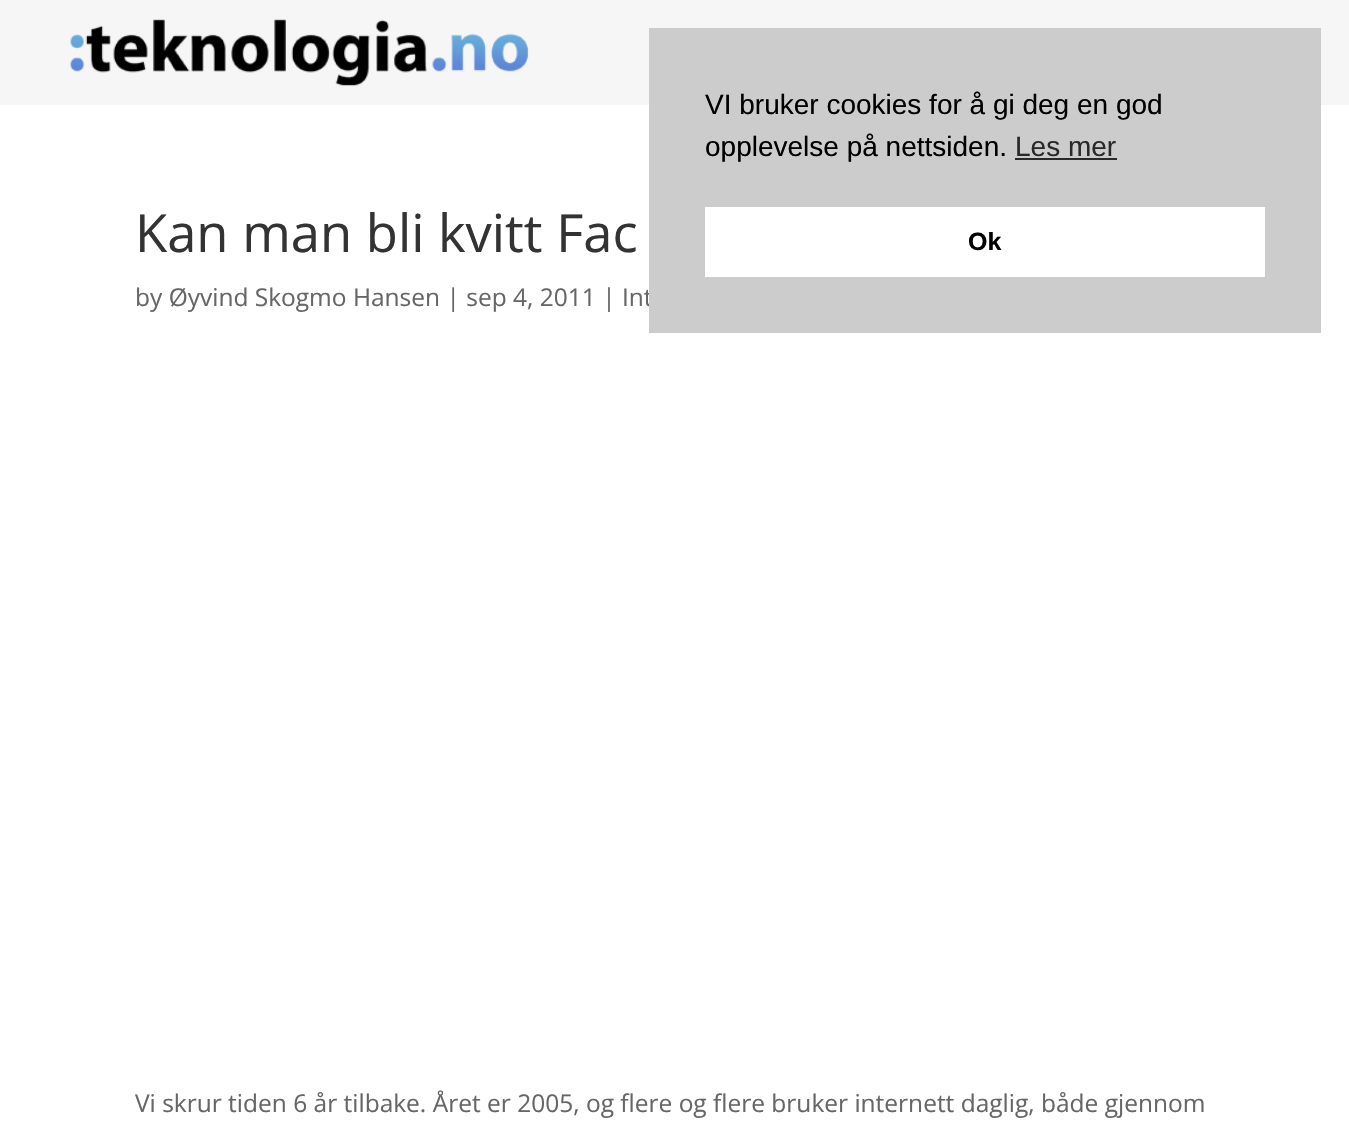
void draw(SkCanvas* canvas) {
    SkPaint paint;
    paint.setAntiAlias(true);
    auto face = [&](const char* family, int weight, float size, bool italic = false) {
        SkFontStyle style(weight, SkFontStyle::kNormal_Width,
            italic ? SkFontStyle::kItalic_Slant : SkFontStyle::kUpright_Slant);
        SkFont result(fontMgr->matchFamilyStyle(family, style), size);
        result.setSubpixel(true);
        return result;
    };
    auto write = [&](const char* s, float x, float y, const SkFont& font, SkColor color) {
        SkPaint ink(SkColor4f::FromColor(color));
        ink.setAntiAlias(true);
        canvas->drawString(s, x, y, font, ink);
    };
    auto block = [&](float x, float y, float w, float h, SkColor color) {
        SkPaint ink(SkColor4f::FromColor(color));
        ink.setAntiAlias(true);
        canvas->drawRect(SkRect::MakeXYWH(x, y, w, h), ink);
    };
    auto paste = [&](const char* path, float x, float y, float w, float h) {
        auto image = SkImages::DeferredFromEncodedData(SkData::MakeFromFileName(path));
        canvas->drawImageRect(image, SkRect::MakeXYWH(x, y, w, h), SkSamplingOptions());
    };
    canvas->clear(SK_ColorWHITE);
    block(0, 0, 1349, 105, SkColorSetRGB(246, 246, 246));
    auto kFont1 = face("Open Sans", 400, 24.5f);
    write("by Øyvind Skogmo Hansen | sep 4, 2011 | Int", 135, 306, kFont1, SkColorSetRGB(102, 102, 102));
    block(649, 28, 672, 305, SkColorSetRGB(204, 204, 204));
    auto kFont2 = face("Liberation Sans", 400, 28);
    write("VI bruker cookies for å gi deg en god", 705, 114, kFont2, SK_ColorBLACK);
    write("opplevelse på nettsiden.", 705, 156, kFont2, SK_ColorBLACK);
    write("Les mer", 1015, 156, kFont2, SkColorSetRGB(41, 41, 41));
    block(1015, 158, 102, 2, SkColorSetRGB(41, 41, 41));
    block(705, 207, 560, 70, SK_ColorWHITE);
    auto kFont3 = face("Liberation Sans", 700, 25);
    write("Ok", 968, 250, kFont3, SK_ColorBLACK);
    paste("pic1.png", 70, 19, 459, 67);
    auto kFont4 = face("Open Sans", 400, 52.5f);
    write("Kan man bli kvitt Fac", 135, 252, kFont4, SkColorSetRGB(51, 51, 51));
    write("Vi skrur tiden 6 år tilbake. Året er 2005, og flere og flere bruker internett daglig, både gjennom", 135, 1112, kFont1, SkColorSetRGB(102, 102, 102));
}
